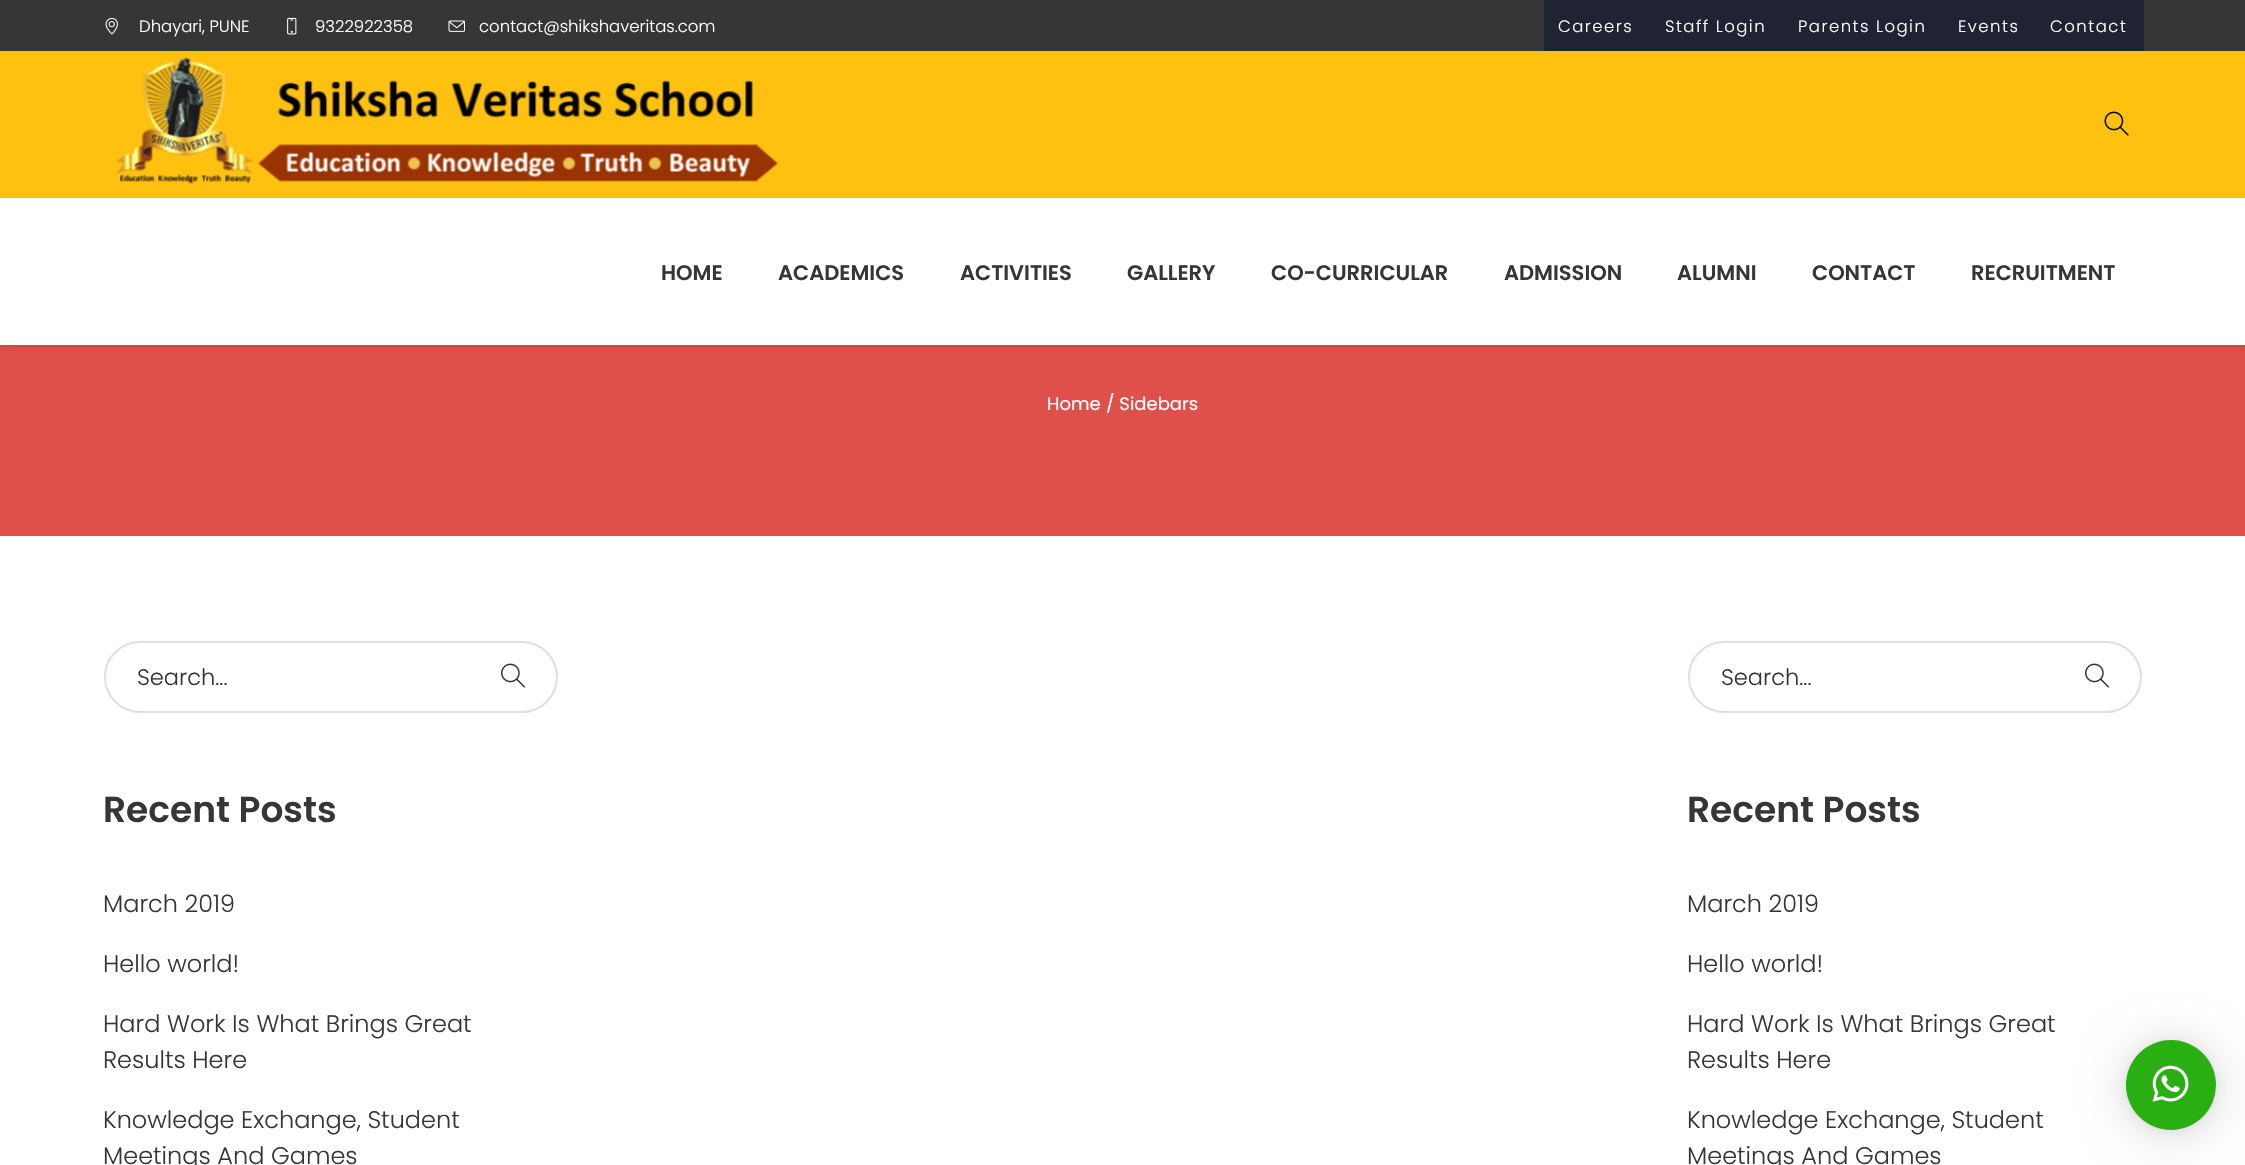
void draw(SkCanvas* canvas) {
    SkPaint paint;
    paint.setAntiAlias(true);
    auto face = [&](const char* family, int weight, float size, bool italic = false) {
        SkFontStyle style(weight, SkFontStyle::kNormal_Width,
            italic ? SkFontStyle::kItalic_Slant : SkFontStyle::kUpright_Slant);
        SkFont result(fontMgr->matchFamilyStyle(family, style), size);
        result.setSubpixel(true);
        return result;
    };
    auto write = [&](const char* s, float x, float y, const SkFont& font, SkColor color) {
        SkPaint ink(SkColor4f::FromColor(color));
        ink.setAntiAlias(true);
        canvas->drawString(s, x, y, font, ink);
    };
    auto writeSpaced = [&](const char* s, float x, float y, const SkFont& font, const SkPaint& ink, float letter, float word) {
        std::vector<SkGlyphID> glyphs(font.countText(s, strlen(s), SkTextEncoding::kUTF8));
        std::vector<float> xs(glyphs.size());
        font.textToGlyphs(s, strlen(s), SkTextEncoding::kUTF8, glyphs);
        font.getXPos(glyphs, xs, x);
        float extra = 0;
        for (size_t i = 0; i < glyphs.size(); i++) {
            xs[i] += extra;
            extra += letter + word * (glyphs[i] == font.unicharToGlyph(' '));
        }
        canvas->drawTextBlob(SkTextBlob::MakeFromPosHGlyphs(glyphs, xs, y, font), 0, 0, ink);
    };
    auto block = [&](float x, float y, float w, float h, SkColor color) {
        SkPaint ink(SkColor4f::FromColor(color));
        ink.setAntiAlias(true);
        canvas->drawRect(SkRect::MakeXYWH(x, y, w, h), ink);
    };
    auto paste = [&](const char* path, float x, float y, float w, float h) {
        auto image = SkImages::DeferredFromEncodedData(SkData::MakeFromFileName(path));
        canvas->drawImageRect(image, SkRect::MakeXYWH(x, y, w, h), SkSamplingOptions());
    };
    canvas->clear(SK_ColorWHITE);
    block(0, 345, 2245, 191, SkColorSetRGB(223, 80, 75));
    paint.setColor(SkColorSetARGB(26, 0, 0, 0));
    paint.setMaskFilter(SkMaskFilter::MakeBlur(kNormal_SkBlurStyle, 2));
    canvas->drawRect(SkRect::MakeXYWH(0, 3, 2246, 345), paint);
    paint.setMaskFilter(nullptr);
    block(0, 198, 2245, 147, SK_ColorWHITE);
    block(0, 0, 2245, 51, SkColorSetRGB(54, 54, 54));
    paste("pic1.png", 105, 17, 13, 18);
    auto kFont1 = face("Poppins", 300, 16.5f);
    write("Dhayari, PUNE", 139, 32, kFont1, SK_ColorWHITE);
    paste("pic2.png", 287, 17, 10, 18);
    write("9322922358", 315, 32, kFont1, SK_ColorWHITE);
    paste("pic3.png", 448, 20, 17, 12);
    write("contact@shikshaveritas.com", 479, 32, kFont1, SK_ColorWHITE);
    block(1544, 0, 106, 51, SkColorSetRGB(32, 35, 52));
    paint.setColor(SK_ColorWHITE);
    writeSpaced("Careers", 1558, 32, kFont1, paint, 1.5f, 0);
    block(1650, 0, 134, 51, SkColorSetRGB(32, 35, 52));
    writeSpaced("Staff Login", 1665, 32, kFont1, paint, 1.5f, 0);
    block(1784, 0, 159, 51, SkColorSetRGB(32, 35, 52));
    writeSpaced("Parents Login", 1798, 32, kFont1, paint, 1.5f, 0);
    block(1943, 0, 201, 51, SkColorSetRGB(32, 35, 52));
    writeSpaced("Events", 1958, 32, kFont1, paint, 1.5f, 0);
    writeSpaced("Contact", 2050, 32, kFont1, paint, 1.5f, 0);
    block(0, 51, 2245, 147, SkColorSetRGB(254, 193, 16));
    paste("pic4.png", 116, 57, 663, 127);
    paste("pic5.png", 2104, 111, 25, 25);
    auto kFont2 = face("Poppins", 600, 21);
    write("HOME", 661, 280, kFont2, SkColorSetRGB(54, 54, 54));
    write("ACADEMICS", 778, 280, kFont2, SkColorSetRGB(54, 54, 54));
    write("ACTIVITIES", 960, 280, kFont2, SkColorSetRGB(54, 54, 54));
    write("GALLERY", 1127, 280, kFont2, SkColorSetRGB(54, 54, 54));
    write("CO-CURRICULAR", 1271, 280, kFont2, SkColorSetRGB(54, 54, 54));
    write("ADMISSION", 1504, 280, kFont2, SkColorSetRGB(54, 54, 54));
    write("ALUMNI", 1677, 280, kFont2, SkColorSetRGB(54, 54, 54));
    write("CONTACT", 1812, 280, kFont2, SkColorSetRGB(54, 54, 54));
    write("RECRUITMENT", 1971, 280, kFont2, SkColorSetRGB(54, 54, 54));
    auto kFont3 = face("Poppins", 400, 18);
    write("Home", 1047, 410, kFont3, SK_ColorWHITE);
    write("/ Sidebars", 1106, 410, kFont3, SK_ColorWHITE);
    paint.setStyle(SkPaint::kStroke_Style);
    paint.setStrokeWidth(2);
    paint.setColor(SkColorSetRGB(223, 223, 223));
    canvas->drawRoundRect(SkRect::MakeXYWH(105, 642, 452, 70), 35, 35, paint);
    auto kFont4 = face("Poppins", 300, 22.5f);
    write("Search...", 137, 685, kFont4, SkColorSetRGB(54, 54, 54));
    paste("pic6.png", 501, 663, 25, 25);
    auto kFont5 = face("Poppins", 600, 36);
    write("Recent Posts", 103, 822, kFont5, SkColorSetRGB(54, 54, 54));
    auto kFont6 = face("Poppins", 300, 24);
    write("March 2019", 103, 912, kFont6, SkColorSetRGB(54, 54, 54));
    write("Hello world!", 103, 972, kFont6, SkColorSetRGB(54, 54, 54));
    write("Hard Work Is What Brings Great", 103, 1032, kFont6, SkColorSetRGB(54, 54, 54));
    write("Results Here", 103, 1068, kFont6, SkColorSetRGB(54, 54, 54));
    write("Knowledge Exchange, Student", 103, 1128, kFont6, SkColorSetRGB(54, 54, 54));
    write("Meetings And Games", 103, 1164, kFont6, SkColorSetRGB(54, 54, 54));
    canvas->drawRoundRect(SkRect::MakeXYWH(1689, 642, 452, 70), 35, 35, paint);
    write("Search...", 1721, 685, kFont4, SkColorSetRGB(54, 54, 54));
    paste("pic6.png", 2085, 663, 25, 25);
    write("Recent Posts", 1687, 822, kFont5, SkColorSetRGB(54, 54, 54));
    write("March 2019", 1687, 912, kFont6, SkColorSetRGB(54, 54, 54));
    write("Hello world!", 1687, 972, kFont6, SkColorSetRGB(54, 54, 54));
    write("Hard Work Is What Brings Great", 1687, 1032, kFont6, SkColorSetRGB(54, 54, 54));
    write("Results Here", 1687, 1068, kFont6, SkColorSetRGB(54, 54, 54));
    write("Knowledge Exchange, Student", 1687, 1128, kFont6, SkColorSetRGB(54, 54, 54));
    write("Meetings And Games", 1687, 1164, kFont6, SkColorSetRGB(54, 54, 54));
    paint.setStyle(SkPaint::kFill_Style);
    paint.setColor(SkColorSetARGB(41, 0, 0, 0));
    paint.setMaskFilter(SkMaskFilter::MakeBlur(kNormal_SkBlurStyle, 24));
    canvas->drawRoundRect(SkRect::MakeXYWH(2126, 1043, 90, 90), 45, 45, paint);
    paint.setMaskFilter(nullptr);
    paint.setColor(SkColorSetARGB(15, 0, 0, 0));
    paint.setMaskFilter(SkMaskFilter::MakeBlur(kNormal_SkBlurStyle, 4.5f));
    canvas->drawRoundRect(SkRect::MakeXYWH(2126, 1041, 90, 90), 45, 45, paint);
    paint.setMaskFilter(nullptr);
    paint.setColor(SkColorSetRGB(41, 175, 17));
    canvas->drawCircle(2171, 1085, 45, paint);
    paste("pic7.png", 2152, 1065, 37, 37);
}
